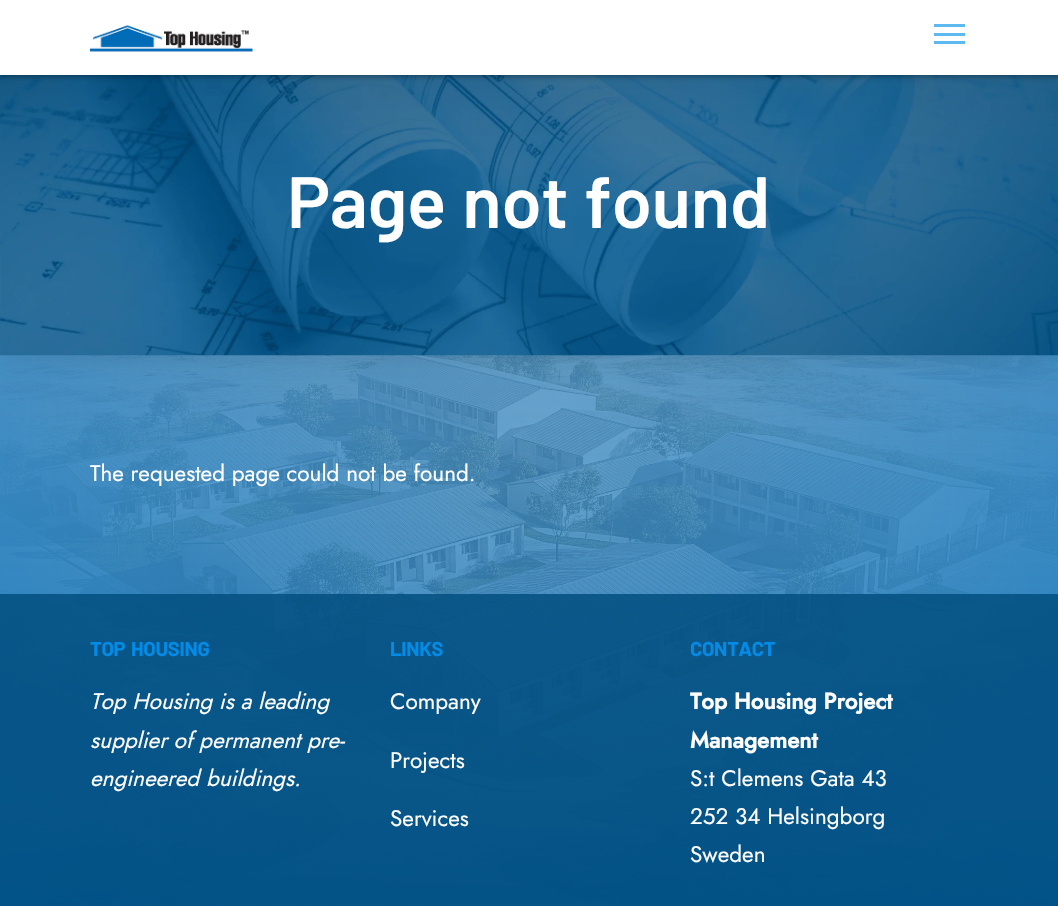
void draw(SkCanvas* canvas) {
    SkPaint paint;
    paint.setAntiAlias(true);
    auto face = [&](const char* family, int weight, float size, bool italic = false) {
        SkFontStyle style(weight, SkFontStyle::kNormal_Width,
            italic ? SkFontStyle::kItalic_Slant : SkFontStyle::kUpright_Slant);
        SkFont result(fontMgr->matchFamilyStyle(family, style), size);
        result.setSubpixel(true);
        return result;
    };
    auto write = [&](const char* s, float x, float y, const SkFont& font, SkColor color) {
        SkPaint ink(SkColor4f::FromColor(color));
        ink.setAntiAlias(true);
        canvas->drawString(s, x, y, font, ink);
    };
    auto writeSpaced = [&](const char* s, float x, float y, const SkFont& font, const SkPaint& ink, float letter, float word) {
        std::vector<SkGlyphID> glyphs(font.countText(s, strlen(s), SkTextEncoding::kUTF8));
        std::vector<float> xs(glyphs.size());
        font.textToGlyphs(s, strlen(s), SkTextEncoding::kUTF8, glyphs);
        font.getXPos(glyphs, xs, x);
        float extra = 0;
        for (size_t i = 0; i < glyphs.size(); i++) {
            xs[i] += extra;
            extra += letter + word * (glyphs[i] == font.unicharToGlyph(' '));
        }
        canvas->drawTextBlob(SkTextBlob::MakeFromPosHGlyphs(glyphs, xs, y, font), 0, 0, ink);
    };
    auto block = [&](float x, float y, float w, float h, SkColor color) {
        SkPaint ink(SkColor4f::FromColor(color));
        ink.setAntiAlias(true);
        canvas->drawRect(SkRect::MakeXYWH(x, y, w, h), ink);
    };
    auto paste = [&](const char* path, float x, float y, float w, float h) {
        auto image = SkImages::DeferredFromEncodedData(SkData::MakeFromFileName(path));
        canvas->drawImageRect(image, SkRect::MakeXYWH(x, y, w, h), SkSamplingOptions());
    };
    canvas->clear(SK_ColorWHITE);
    paste("pic1.png", 0, 355, 1058, 551);
    paint.setColor(SkColorSetARGB(13, 0, 0, 0));
    paint.setMaskFilter(SkMaskFilter::MakeBlur(kNormal_SkBlurStyle, 22));
    canvas->drawRect(SkRect::MakeXYWH(0, 0, 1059, 356), paint);
    paint.setMaskFilter(nullptr);
    paint.setColor(SkColorSetARGB(26, 0, 0, 0));
    paint.setMaskFilter(SkMaskFilter::MakeBlur(kNormal_SkBlurStyle, 14));
    canvas->drawRect(SkRect::MakeXYWH(0, -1, 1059, 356), paint);
    paint.setMaskFilter(nullptr);
    paste("pic3.png", 0, 75, 1058, 281);
    paint.setColor(SkColorSetARGB(102, 0, 0, 0));
    paint.setMaskFilter(SkMaskFilter::MakeBlur(kNormal_SkBlurStyle, 3));
    canvas->drawRect(SkRect::MakeXYWH(0, 0, 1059, 76), paint);
    paint.setMaskFilter(nullptr);
    block(0, 0, 1058, 75, SK_ColorWHITE);
    paste("pic2.png", 90, 25, 163, 27);
    block(934, 24, 31, 3, SkColorSetRGB(94, 185, 240));
    block(934, 33, 31, 3, SkColorSetRGB(94, 185, 240));
    block(934, 41, 31, 3, SkColorSetRGB(94, 185, 240));
    auto kFont1 = face("Barlow", 600, 72.5f);
    paint.setColor(SK_ColorWHITE);
    writeSpaced("Page not found", 287, 228, kFont1, paint, -0.25f, 2);
    auto kFont2 = face("Jost", 400, 22.5f);
    write("The requested page could not be found.", 90, 481, kFont2, SK_ColorWHITE);
    block(0, 594, 1058, 312, SkColorSetARGB(217, 1, 77, 127));
    auto kFont3 = face("Barlow", 700, 20);
    paint.setColor(SkColorSetRGB(2, 140, 232));
    writeSpaced("TOP HOUSING", 90, 656, kFont3, paint, -0.25f, 2);
    auto kFont4 = face("Jost", 400, 22.5f, true);
    write("Top Housing is a leading", 90, 709, kFont4, SK_ColorWHITE);
    write("supplier of permanent pre-", 90, 748, kFont4, SK_ColorWHITE);
    write("engineered buildings.", 90, 786, kFont4, SK_ColorWHITE);
    writeSpaced("LINKS", 390, 656, kFont3, paint, -0.25f, 0);
    write("Company", 390, 709, kFont2, SK_ColorWHITE);
    write("Projects", 390, 768, kFont2, SK_ColorWHITE);
    write("Services", 390, 826, kFont2, SK_ColorWHITE);
    writeSpaced("CONTACT", 690, 656, kFont3, paint, -0.25f, 0);
    auto kFont5 = face("Jost", 700, 22.5f);
    write("Top Housing Project", 690, 709, kFont5, SK_ColorWHITE);
    write("Management", 690, 748, kFont5, SK_ColorWHITE);
    write("S:t Clemens Gata 43", 690, 786, kFont2, SK_ColorWHITE);
    write("252 34 Helsingborg", 690, 824, kFont2, SK_ColorWHITE);
    write("Sweden", 690, 862, kFont2, SK_ColorWHITE);
}
